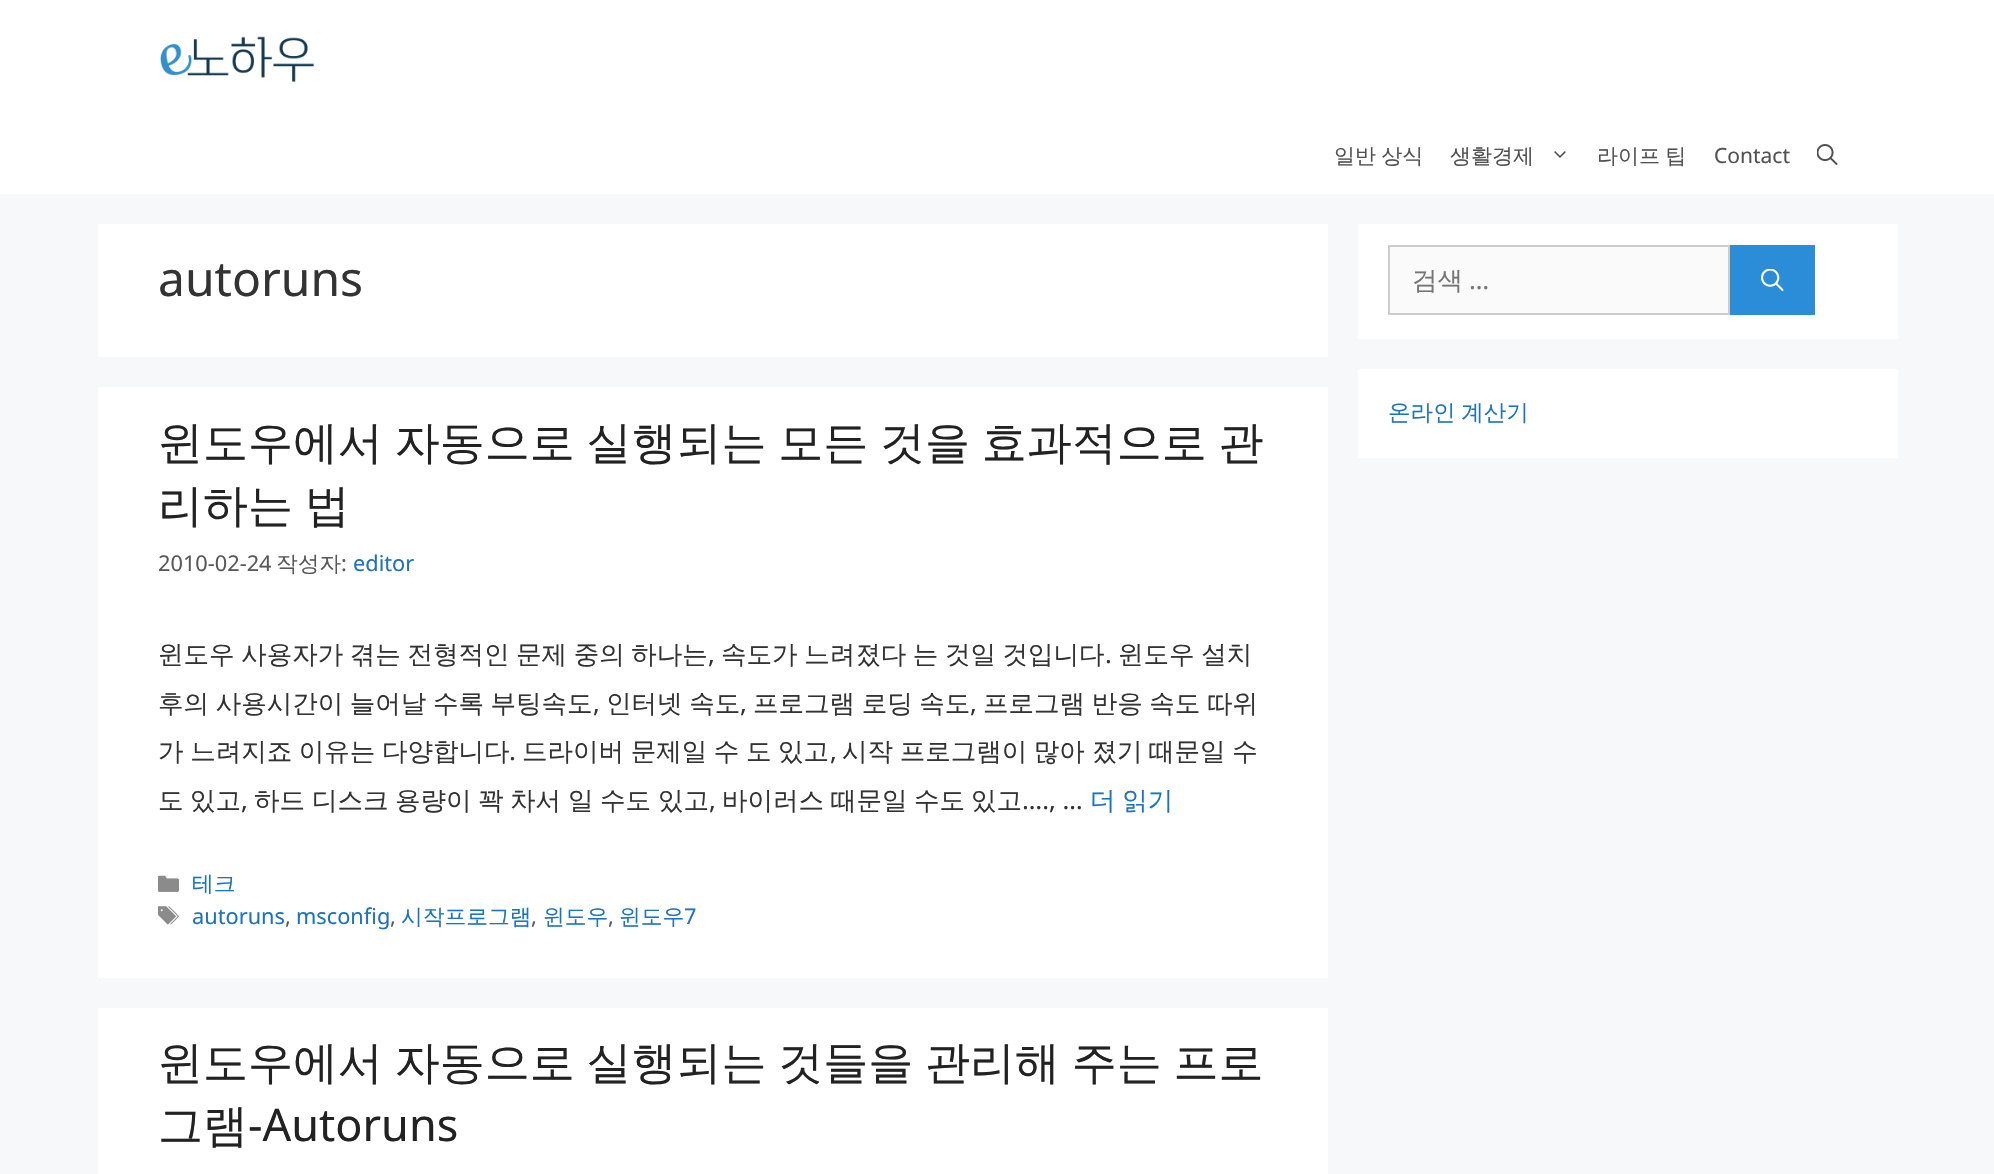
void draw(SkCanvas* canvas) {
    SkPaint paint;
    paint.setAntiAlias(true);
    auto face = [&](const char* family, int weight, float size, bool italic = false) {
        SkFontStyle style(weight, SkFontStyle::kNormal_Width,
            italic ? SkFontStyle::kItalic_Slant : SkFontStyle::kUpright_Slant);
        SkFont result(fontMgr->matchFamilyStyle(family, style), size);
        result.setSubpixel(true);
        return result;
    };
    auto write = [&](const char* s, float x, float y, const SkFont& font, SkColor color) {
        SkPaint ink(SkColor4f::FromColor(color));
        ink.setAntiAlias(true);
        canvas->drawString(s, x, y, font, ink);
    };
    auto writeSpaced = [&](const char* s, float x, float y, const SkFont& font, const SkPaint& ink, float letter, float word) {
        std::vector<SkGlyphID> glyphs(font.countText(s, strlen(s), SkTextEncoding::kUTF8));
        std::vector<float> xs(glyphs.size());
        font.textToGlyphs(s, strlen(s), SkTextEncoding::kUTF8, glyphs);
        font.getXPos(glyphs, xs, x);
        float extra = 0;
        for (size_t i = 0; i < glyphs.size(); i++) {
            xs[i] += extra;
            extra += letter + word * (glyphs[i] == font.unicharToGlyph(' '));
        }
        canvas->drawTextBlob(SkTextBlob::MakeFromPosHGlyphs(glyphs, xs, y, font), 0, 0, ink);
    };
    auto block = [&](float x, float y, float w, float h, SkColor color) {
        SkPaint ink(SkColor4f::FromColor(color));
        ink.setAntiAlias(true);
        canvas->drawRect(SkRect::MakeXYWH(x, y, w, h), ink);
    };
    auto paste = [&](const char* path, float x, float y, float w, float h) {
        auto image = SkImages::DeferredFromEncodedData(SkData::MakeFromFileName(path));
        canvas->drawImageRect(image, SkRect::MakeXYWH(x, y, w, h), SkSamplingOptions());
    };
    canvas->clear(SkColorSetRGB(247, 248, 249));
    block(0, 0, 1994, 194, SK_ColorWHITE);
    paste("pic1.png", 160, 36, 155, 46);
    auto kFont1 = face("WenQuanYi Zen Hei", 500, 21);
    paint.setColor(SkColorSetRGB(81, 81, 81));
    writeSpaced("일반 상식", 1334, 163, kFont1, paint, 0, -1);
    write("생활경제", 1450, 163, kFont1, SkColorSetRGB(81, 81, 81));
    paste("pic2.png", 1554, 151, 12, 7);
    writeSpaced("라이프 팁", 1597, 163, kFont1, paint, 0, -1);
    auto kFont2 = face("Noto Sans", 400, 21);
    write("Contact", 1714, 163, kFont2, SkColorSetRGB(81, 81, 81));
    paste("pic3.png", 1817, 144, 21, 21);
    block(98, 224, 1230, 133, SK_ColorWHITE);
    auto kFont3 = face("Noto Sans", 400, 48);
    write("autoruns", 158, 296, kFont3, SkColorSetRGB(51, 51, 51));
    block(98, 387, 1230, 591, SK_ColorWHITE);
    auto kFont4 = face("WenQuanYi Zen Hei", 500, 45);
    paint.setColor(SkColorSetRGB(34, 34, 34));
    writeSpaced("윈도우에서 자동으로 실행되는 모든 것을 효과적으로 관", 158, 458, kFont4, paint, 0, -1.75f);
    writeSpaced("리하는 법", 158, 521, kFont4, paint, 0, -1.75f);
    auto kFont5 = face("Noto Sans", 400, 21.75f);
    write("2010-02-24", 158, 571, kFont5, SkColorSetRGB(89, 89, 89));
    auto kFont6 = face("WenQuanYi Zen Hei", 500, 21.75f);
    write("작성자", 276, 571, kFont6, SkColorSetRGB(89, 89, 89));
    write(":", 341, 571, kFont5, SkColorSetRGB(89, 89, 89));
    write("editor", 353, 571, kFont5, SkColorSetRGB(30, 115, 190));
    auto kFont7 = face("WenQuanYi Zen Hei", 500, 25.5f);
    paint.setColor(SkColorSetRGB(51, 51, 51));
    writeSpaced("윈도우 사용자가 겪는 전형적인 문제 중의 하나는", 158, 663, kFont7, paint, 0, -1);
    auto kFont8 = face("Noto Sans", 400, 25.5f);
    write(",", 708, 663, kFont8, SkColorSetRGB(51, 51, 51));
    writeSpaced("속도가 느려졌다 는 것일 것입니다", 721, 663, kFont7, paint, 0, -1);
    write(".", 1105, 663, kFont8, SkColorSetRGB(51, 51, 51));
    writeSpaced("윈도우 설치", 1118, 663, kFont7, paint, 0, -1);
    writeSpaced("후의 사용시간이 늘어날 수록 부팅속도", 158, 712, kFont7, paint, 0, -1);
    write(",", 593, 712, kFont8, SkColorSetRGB(51, 51, 51));
    writeSpaced("인터넷 속도", 606, 712, kFont7, paint, 0, -1);
    write(",", 740, 712, kFont8, SkColorSetRGB(51, 51, 51));
    writeSpaced("프로그램 로딩 속도", 753, 712, kFont7, paint, 0, -1);
    write(",", 970, 712, kFont8, SkColorSetRGB(51, 51, 51));
    writeSpaced("프로그램 반응 속도 따위", 983, 712, kFont7, paint, 0, -1);
    writeSpaced("가 느려지죠 이유는 다양합니다", 158, 760, kFont7, paint, 0, -1);
    write(".", 509, 760, kFont8, SkColorSetRGB(51, 51, 51));
    writeSpaced("드라이버 문제일 수 도 있고", 522, 760, kFont7, paint, 0, -1);
    write(",", 830, 760, kFont8, SkColorSetRGB(51, 51, 51));
    writeSpaced("시작 프로그램이 많아 졌기 때문일 수", 842, 760, kFont7, paint, 0, -1);
    write("도", 158, 809, kFont7, SkColorSetRGB(51, 51, 51));
    write("있고", 190, 809, kFont7, SkColorSetRGB(51, 51, 51));
    write(",", 241, 809, kFont8, SkColorSetRGB(51, 51, 51));
    write("하드", 254, 809, kFont7, SkColorSetRGB(51, 51, 51));
    write("디스크", 312, 809, kFont7, SkColorSetRGB(51, 51, 51));
    write("용량이", 395, 809, kFont7, SkColorSetRGB(51, 51, 51));
    write("꽉", 478, 809, kFont7, SkColorSetRGB(51, 51, 51));
    write("차서", 510, 809, kFont7, SkColorSetRGB(51, 51, 51));
    write("일", 568, 809, kFont7, SkColorSetRGB(51, 51, 51));
    write("수도", 600, 809, kFont7, SkColorSetRGB(51, 51, 51));
    write("있고", 658, 809, kFont7, SkColorSetRGB(51, 51, 51));
    write(",", 709, 809, kFont8, SkColorSetRGB(51, 51, 51));
    write("바이러스", 722, 809, kFont7, SkColorSetRGB(51, 51, 51));
    write("때문일", 831, 809, kFont7, SkColorSetRGB(51, 51, 51));
    write("수도", 914, 809, kFont7, SkColorSetRGB(51, 51, 51));
    write("있고", 971, 809, kFont7, SkColorSetRGB(51, 51, 51));
    write("…., …", 1022, 809, kFont8, SkColorSetRGB(51, 51, 51));
    paint.setColor(SkColorSetRGB(30, 115, 190));
    writeSpaced("더 읽기", 1090, 809, kFont7, paint, 0, -1);
    paste("pic4.png", 158, 875, 21, 17);
    write("테크", 192, 891, kFont6, SkColorSetRGB(30, 115, 190));
    paste("pic5.png", 158, 906, 21, 19);
    write("autoruns", 192, 924, kFont5, SkColorSetRGB(30, 115, 190));
    write(",", 285, 924, kFont5, SkColorSetRGB(89, 89, 89));
    write("msconfig", 296, 924, kFont5, SkColorSetRGB(30, 115, 190));
    write(",", 390, 924, kFont5, SkColorSetRGB(89, 89, 89));
    write("시작프로그램", 401, 924, kFont6, SkColorSetRGB(30, 115, 190));
    write(",", 531, 924, kFont5, SkColorSetRGB(89, 89, 89));
    write("윈도우", 543, 924, kFont6, SkColorSetRGB(30, 115, 190));
    write(",", 608, 924, kFont5, SkColorSetRGB(89, 89, 89));
    write("윈도우", 619, 924, kFont6, SkColorSetRGB(30, 115, 190));
    write("7", 684, 924, kFont5, SkColorSetRGB(30, 115, 190));
    block(98, 1008, 1230, 166, SK_ColorWHITE);
    paint.setColor(SkColorSetRGB(34, 34, 34));
    writeSpaced("윈도우에서 자동으로 실행되는 것들을 관리해 주는 프로", 158, 1078, kFont4, paint, 0, -1.75f);
    write("그램", 158, 1141, kFont4, SkColorSetRGB(34, 34, 34));
    auto kFont9 = face("Noto Sans", 400, 45);
    write("-Autoruns", 248, 1141, kFont9, SkColorSetRGB(34, 34, 34));
    block(1358, 224, 540, 115, SK_ColorWHITE);
    paint.setColor(SkColorSetRGB(250, 250, 250));
    canvas->drawRect(SkRect::MakeXYWH(1389, 246, 340, 68), paint);
    paint.setStyle(SkPaint::kStroke_Style);
    paint.setStrokeWidth(2);
    paint.setColor(SkColorSetRGB(204, 204, 204));
    canvas->drawRect(SkRect::MakeXYWH(1389, 246, 340, 68), paint);
    write("검색", 1412, 289, kFont7, SkColorSetRGB(117, 117, 117));
    write("…", 1469, 289, kFont8, SkColorSetRGB(117, 117, 117));
    block(1730, 245, 85, 70, SkColorSetRGB(43, 141, 216));
    paste("pic6.png", 1761, 269, 23, 22);
    block(1358, 369, 540, 89, SK_ColorWHITE);
    auto kFont10 = face("WenQuanYi Zen Hei", 500, 22.5f);
    paint.setStyle(SkPaint::kFill_Style);
    paint.setColor(SkColorSetRGB(30, 115, 190));
    writeSpaced("온라인 계산기", 1388, 420, kFont10, paint, 0, -1);
}
